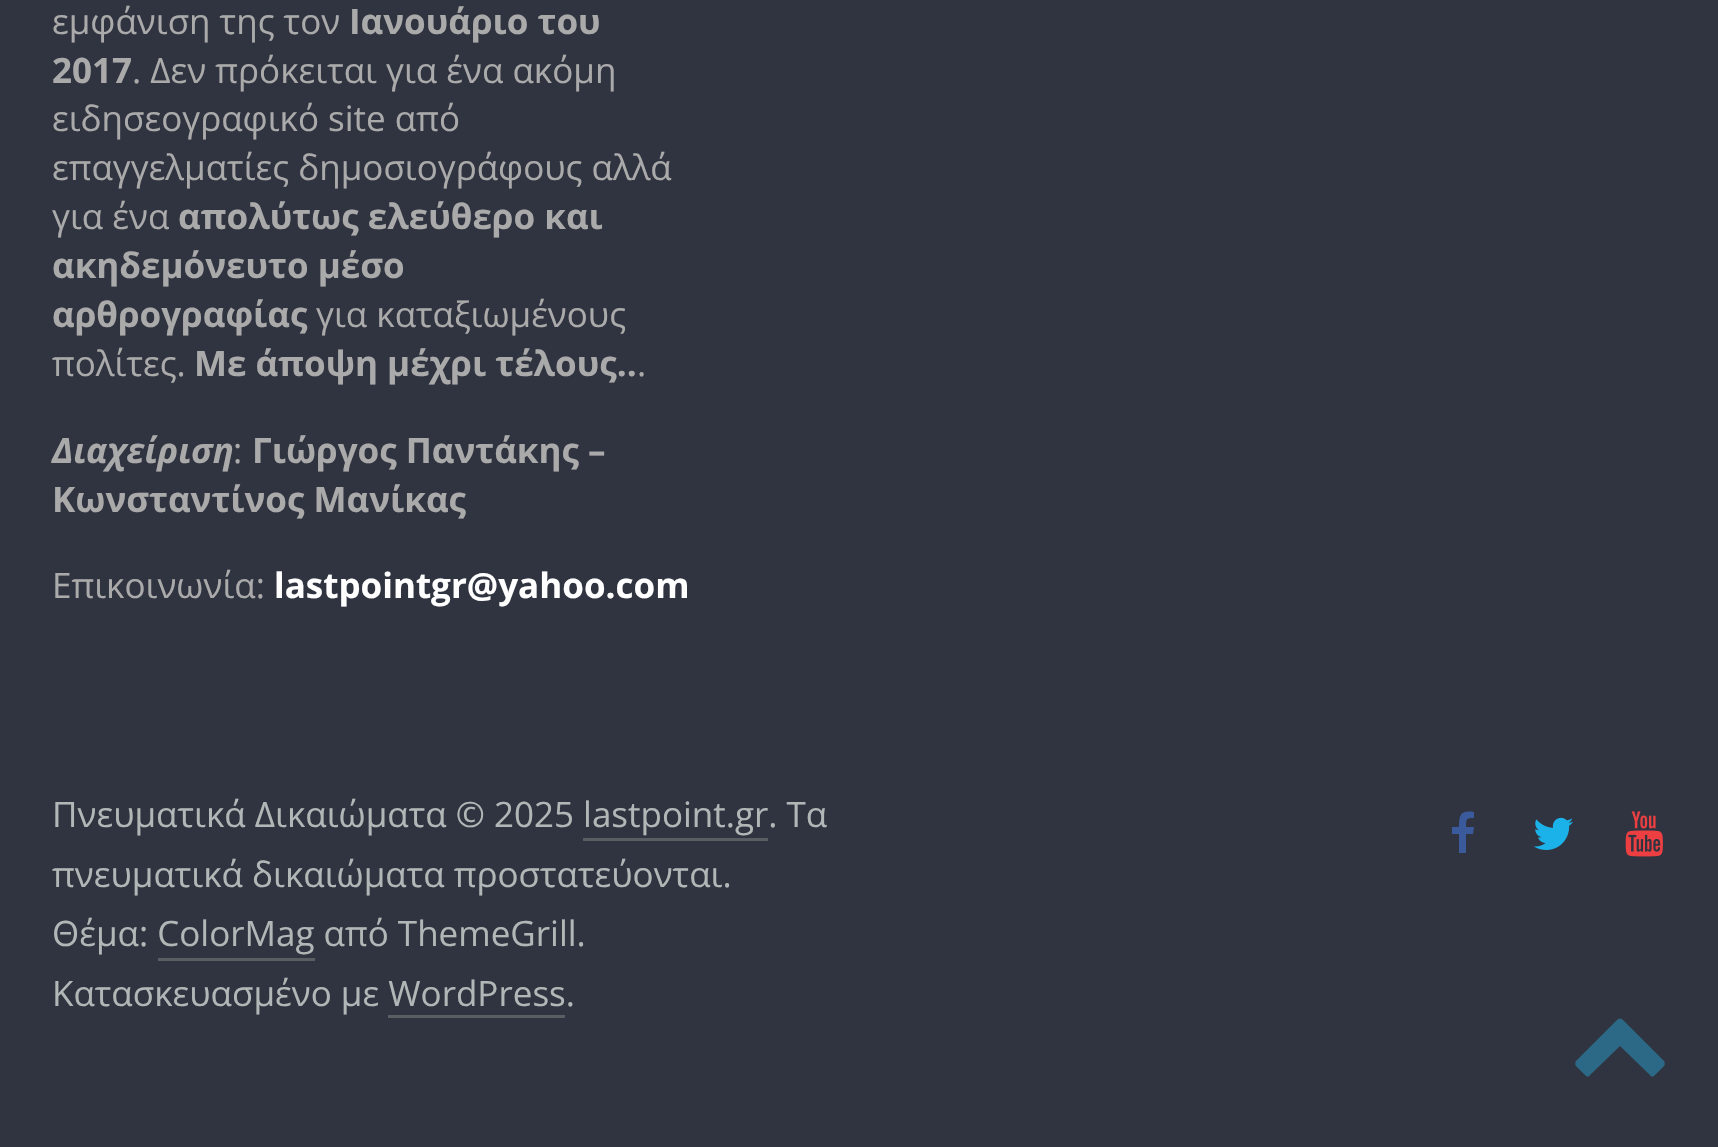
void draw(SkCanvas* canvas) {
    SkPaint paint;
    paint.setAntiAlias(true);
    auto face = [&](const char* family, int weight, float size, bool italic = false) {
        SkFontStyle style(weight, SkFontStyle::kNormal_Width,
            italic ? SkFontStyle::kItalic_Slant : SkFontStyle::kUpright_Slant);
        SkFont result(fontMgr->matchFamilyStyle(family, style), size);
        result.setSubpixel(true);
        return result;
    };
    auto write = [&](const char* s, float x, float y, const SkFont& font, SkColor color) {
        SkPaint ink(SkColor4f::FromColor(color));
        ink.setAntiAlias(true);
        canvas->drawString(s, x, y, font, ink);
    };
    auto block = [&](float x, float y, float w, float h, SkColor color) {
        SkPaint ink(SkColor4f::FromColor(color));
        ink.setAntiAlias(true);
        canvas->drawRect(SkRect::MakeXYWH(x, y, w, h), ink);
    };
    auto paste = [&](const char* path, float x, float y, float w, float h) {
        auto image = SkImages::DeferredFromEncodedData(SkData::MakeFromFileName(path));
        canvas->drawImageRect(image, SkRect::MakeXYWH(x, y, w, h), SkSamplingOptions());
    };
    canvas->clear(SkColorSetRGB(48, 52, 64));
    auto kFont1 = face("Open Sans", 400, 35);
    write("εμφάνιση της τον", 52, 34, kFont1, SkColorSetRGB(170, 170, 170));
    auto kFont2 = face("Open Sans", 700, 35);
    write("Ιανουάριο του", 349, 34, kFont2, SkColorSetRGB(170, 170, 170));
    write("2017", 52, 83, kFont2, SkColorSetRGB(170, 170, 170));
    write(". Δεν πρόκειται για ένα ακόμη", 132, 83, kFont1, SkColorSetRGB(170, 170, 170));
    write("ειδησεογραφικό site από", 52, 131, kFont1, SkColorSetRGB(170, 170, 170));
    write("επαγγελματίες δημοσιογράφους αλλά", 52, 180, kFont1, SkColorSetRGB(170, 170, 170));
    write("για ένα", 52, 229, kFont1, SkColorSetRGB(170, 170, 170));
    write("απολύτως ελεύθερο και", 178, 229, kFont2, SkColorSetRGB(170, 170, 170));
    write("ακηδεμόνευτο μέσο", 52, 278, kFont2, SkColorSetRGB(170, 170, 170));
    write("αρθρογραφίας", 52, 327, kFont2, SkColorSetRGB(170, 170, 170));
    write("για καταξιωμένους", 316, 327, kFont1, SkColorSetRGB(170, 170, 170));
    write("πολίτες.", 52, 376, kFont1, SkColorSetRGB(170, 170, 170));
    write("Με άποψη μέχρι τέλους..", 194, 376, kFont2, SkColorSetRGB(170, 170, 170));
    write(".", 637, 376, kFont1, SkColorSetRGB(170, 170, 170));
    auto kFont3 = face("Open Sans", 700, 35, true);
    write("Διαχείριση", 52, 463, kFont3, SkColorSetRGB(170, 170, 170));
    write(":", 233, 463, kFont1, SkColorSetRGB(170, 170, 170));
    write("Γιώργος Παντάκης –", 252, 463, kFont2, SkColorSetRGB(170, 170, 170));
    write("Κωνσταντίνος Μανίκας", 52, 512, kFont2, SkColorSetRGB(170, 170, 170));
    write("Επικοινωνία:", 52, 598, kFont1, SkColorSetRGB(170, 170, 170));
    write("lastpointgr@yahoo.com", 274, 598, kFont2, SK_ColorWHITE);
    write("Πνευματικά Δικαιώματα © 2025 lastpoint.gr. Τα", 52, 827, kFont1, SkColorSetRGB(177, 182, 182));
    block(583, 838, 185, 3, SkColorSetRGB(90, 93, 98));
    write("πνευματικά δικαιώματα προστατεύονται.", 52, 887, kFont1, SkColorSetRGB(177, 182, 182));
    write("Θέμα: ColorMag από ThemeGrill.", 52, 946, kFont1, SkColorSetRGB(177, 182, 182));
    block(158, 958, 157, 3, SkColorSetRGB(90, 93, 98));
    write("Κατασκευασμένο με WordPress.", 52, 1006, kFont1, SkColorSetRGB(177, 182, 182));
    block(388, 1015, 177, 3, SkColorSetRGB(90, 93, 98));
    paint.setColor(SkColorSetRGB(59, 90, 155));
    canvas->drawPath(SkPathBuilder().moveTo(1474, 812).cubicTo(1461, 810, 1459, 814, 1459, 827).lineTo(1452, 827).lineTo(1452, 834).lineTo(1459, 834).lineTo(1459, 853).lineTo(1466, 853).lineTo(1466, 834).lineTo(1473, 834).lineTo(1474, 827).lineTo(1466, 827).cubicTo(1466, 819, 1466, 818, 1474, 818).close().detach(), paint);
    paste("pic1.png", 1533, 817, 40, 33);
    paste("pic2.png", 1625, 811, 38, 46);
    paint.setColor(SkColorSetRGB(44, 105, 134));
    canvas->drawPath(SkPathBuilder().moveTo(1664, 1066).cubicTo(1665, 1065, 1665, 1062, 1664, 1061).lineTo(1623, 1020).cubicTo(1621, 1018, 1619, 1018, 1617, 1020).lineTo(1576, 1061).cubicTo(1575, 1062, 1575, 1065, 1576, 1066).lineTo(1585, 1075).cubicTo(1587, 1077, 1589, 1077, 1590, 1075).lineTo(1620, 1046).lineTo(1650, 1075).cubicTo(1651, 1077, 1653, 1077, 1655, 1075).close().detach(), paint);
}
